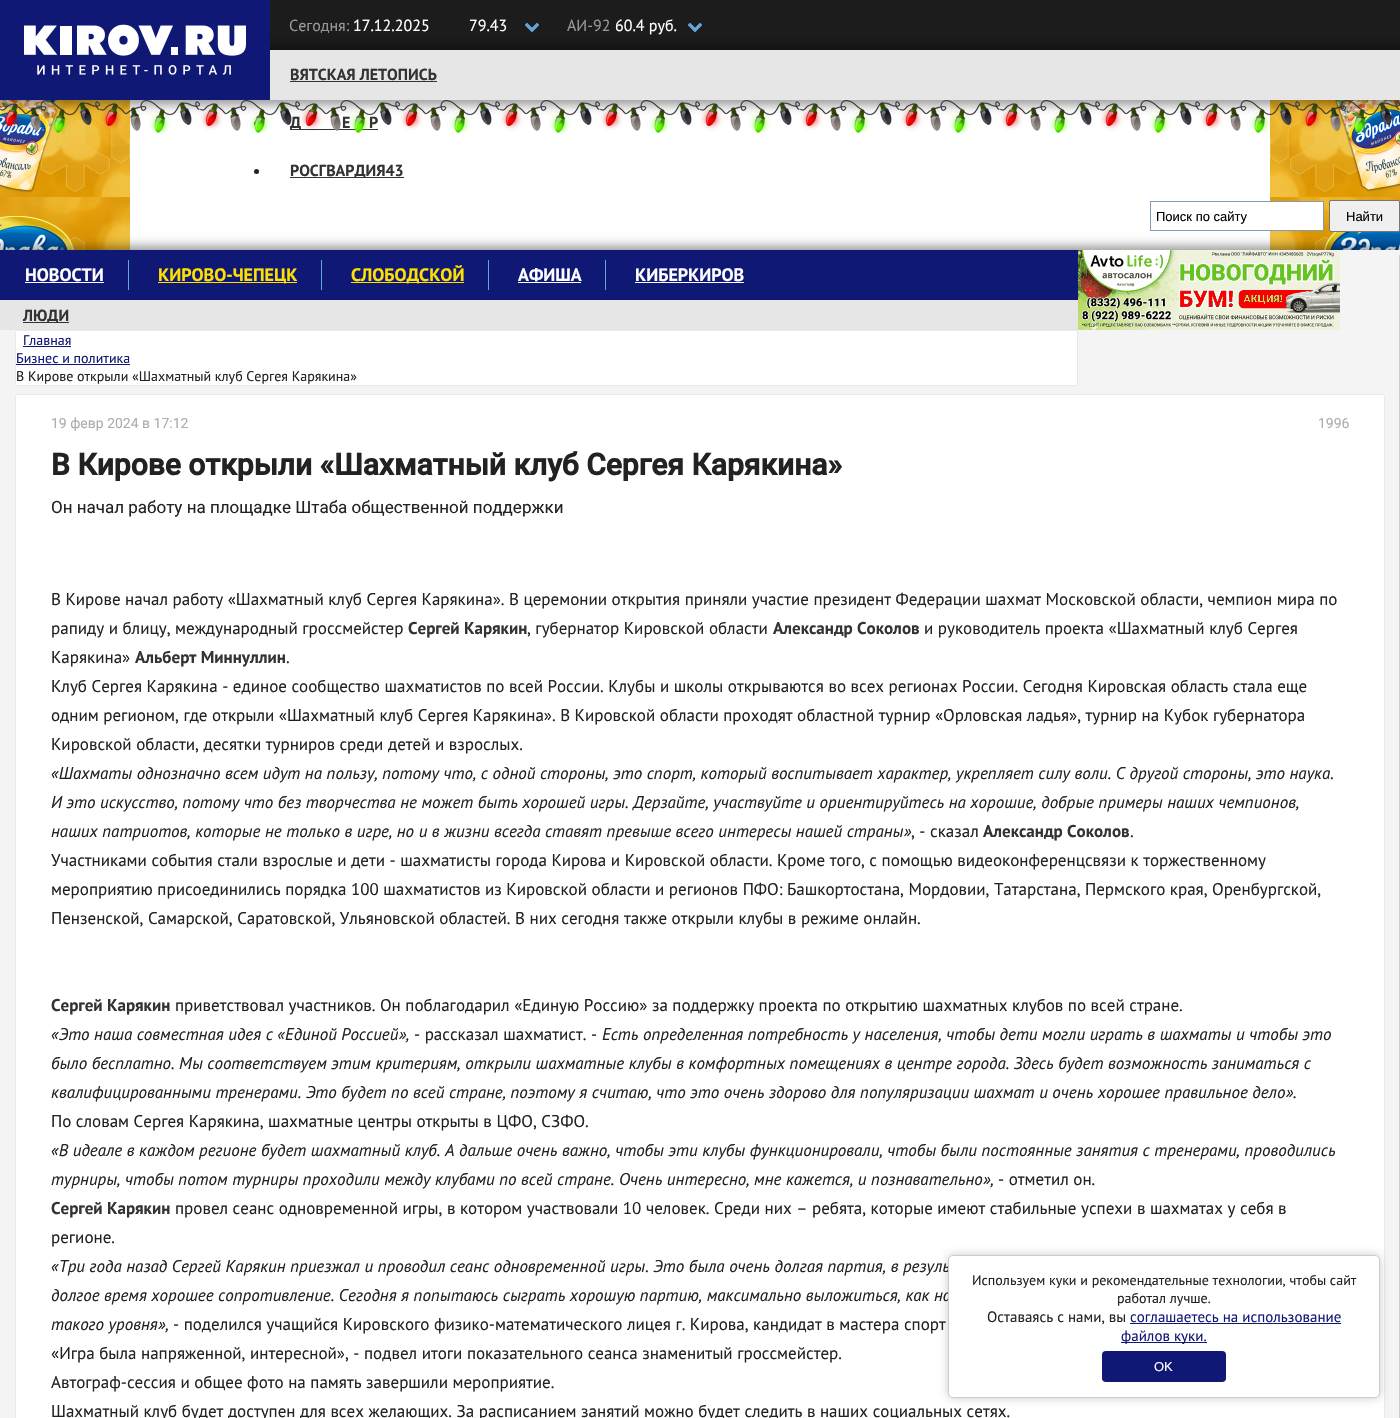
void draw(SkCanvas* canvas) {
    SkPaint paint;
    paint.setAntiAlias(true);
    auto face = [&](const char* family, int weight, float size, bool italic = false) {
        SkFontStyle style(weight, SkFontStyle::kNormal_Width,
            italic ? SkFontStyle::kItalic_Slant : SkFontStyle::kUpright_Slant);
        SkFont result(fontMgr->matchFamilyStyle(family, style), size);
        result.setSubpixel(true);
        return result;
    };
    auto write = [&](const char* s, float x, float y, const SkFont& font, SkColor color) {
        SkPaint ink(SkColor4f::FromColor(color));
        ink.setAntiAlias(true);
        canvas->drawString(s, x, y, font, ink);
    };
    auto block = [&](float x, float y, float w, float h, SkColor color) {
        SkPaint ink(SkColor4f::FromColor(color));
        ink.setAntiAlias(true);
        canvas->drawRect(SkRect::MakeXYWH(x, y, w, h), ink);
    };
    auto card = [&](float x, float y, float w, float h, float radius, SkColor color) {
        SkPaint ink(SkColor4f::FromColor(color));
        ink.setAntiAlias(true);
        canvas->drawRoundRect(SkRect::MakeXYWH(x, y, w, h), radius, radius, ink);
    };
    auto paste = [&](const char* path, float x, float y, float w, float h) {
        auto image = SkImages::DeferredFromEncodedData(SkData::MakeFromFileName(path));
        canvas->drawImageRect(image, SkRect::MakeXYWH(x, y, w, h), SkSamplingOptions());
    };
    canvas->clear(SkColorSetRGB(28, 28, 28));
    paste("pic4.png", 0, 100, 1400, 150);
    paint.setColor(SkColorSetARGB(102, 0, 0, 0));
    paint.setMaskFilter(SkMaskFilter::MakeBlur(kNormal_SkBlurStyle, 5));
    canvas->drawRect(SkRect::MakeXYWH(-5, 45, 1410, 60), paint);
    paint.setMaskFilter(nullptr);
    paste("pic1.png", 0, 0, 270, 100);
    auto kFont1 = face("PT Sans", 400, 16);
    write("Сегодня:", 289, 31, kFont1, SkColorSetRGB(153, 153, 153));
    write("17.12.2025", 353, 31, kFont1, SK_ColorWHITE);
    write("79.43", 469, 31, kFont1, SK_ColorWHITE);
    paste("pic2.png", 525, 23, 14, 9);
    write("АИ-92", 567, 31, kFont1, SkColorSetRGB(153, 153, 153));
    write("60.4 руб.", 615, 31, kFont1, SK_ColorWHITE);
    paste("pic2.png", 688, 23, 14, 9);
    block(270, 50, 1130, 50, SkColorSetRGB(230, 230, 230));
    auto kFont2 = face("PT Sans", 700, 16);
    write("ВЯТСКАЯ ЛЕТОПИСЬ", 290, 80, kFont2, SkColorSetRGB(51, 51, 51));
    block(290, 81, 147, 1, SkColorSetRGB(51, 51, 51));
    paint.setColor(SkColorSetRGB(34, 34, 34));
    canvas->drawCircle(256.5f, 123.5f, 2.5f, paint);
    block(290, 129, 88, 1, SkColorSetRGB(51, 51, 51));
    write("Д", 290, 128, kFont2, SkColorSetRGB(51, 51, 51));
    write("Е", 342, 128, kFont2, SkColorSetRGB(51, 51, 51));
    write("Р", 369, 128, kFont2, SkColorSetRGB(51, 51, 51));
    canvas->drawCircle(256.5f, 171.5f, 2.5f, paint);
    block(290, 177, 114, 1, SkColorSetRGB(51, 51, 51));
    write("РОСГВАРДИЯ43", 290, 176, kFont2, SkColorSetRGB(51, 51, 51));
    block(1270, 202, 53, 28, SK_ColorWHITE);
    paint.setColor(SkColorSetARGB(102, 0, 0, 0));
    paint.setMaskFilter(SkMaskFilter::MakeBlur(kNormal_SkBlurStyle, 5));
    canvas->drawRect(SkRect::MakeXYWH(-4, 246, 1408, 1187), paint);
    paint.setMaskFilter(nullptr);
    paint.setStyle(SkPaint::kStroke_Style);
    paint.setStrokeWidth(1);
    paint.setColor(SkColorSetRGB(127, 157, 185));
    canvas->drawRect(SkRect::MakeXYWH(1150.5f, 201.5f, 173, 29), paint);
    auto kFont3 = face("Liberation Sans", 400, 13);
    write("Поиск по сайту", 1156, 221, kFont3, SK_ColorBLACK);
    paint.setStyle(SkPaint::kFill_Style);
    paint.setColor(SkColorSetRGB(239, 239, 239));
    canvas->drawRoundRect(SkRect::MakeXYWH(1329.5f, 200.5f, 70, 31), 1.5f, 1.5f, paint);
    paint.setStyle(SkPaint::kStroke_Style);
    paint.setColor(SkColorSetRGB(118, 118, 118));
    canvas->drawRoundRect(SkRect::MakeXYWH(1329.5f, 200.5f, 70, 31), 1.5f, 1.5f, paint);
    write("Найти", 1346, 221, kFont3, SK_ColorBLACK);
    paste("pic3.png", 0, 100, 1400, 35);
    block(0, 250, 1400, 1168, SkColorSetRGB(244, 244, 244));
    block(0, 250, 1078, 50, SkColorSetRGB(16, 24, 117));
    auto kFont4 = face("PT Sans", 700, 18);
    write("НОВОСТИ", 25, 281, kFont4, SK_ColorWHITE);
    block(25, 282, 79, 1, SK_ColorWHITE);
    block(128, 260, 1, 30, SkColorSetRGB(98, 167, 217));
    block(158, 282, 139, 1, SkColorSetRGB(255, 224, 0));
    write("КИРОВО-ЧЕПЕЦК", 158, 281, kFont4, SkColorSetRGB(255, 224, 0));
    block(321, 260, 1, 30, SkColorSetRGB(98, 167, 217));
    block(351, 282, 113, 1, SkColorSetRGB(255, 224, 0));
    write("СЛОБОДСКОЙ", 351, 281, kFont4, SkColorSetRGB(255, 224, 0));
    block(488, 260, 1, 30, SkColorSetRGB(98, 167, 217));
    write("АФИША", 518, 281, kFont4, SK_ColorWHITE);
    block(518, 282, 63, 1, SK_ColorWHITE);
    block(605, 260, 1, 30, SkColorSetRGB(98, 167, 217));
    write("КИБЕРКИРОВ", 635, 281, kFont4, SK_ColorWHITE);
    block(635, 282, 109, 1, SK_ColorWHITE);
    block(0, 300, 1078, 30, SkColorSetRGB(230, 230, 230));
    block(23, 322, 46, 1, SkColorSetRGB(51, 51, 51));
    write("ЛЮДИ", 23, 321, kFont2, SkColorSetRGB(51, 51, 51));
    block(1399, 255, 1, 1163, SkColorSetRGB(204, 204, 204));
    paste("pic5.png", 1078, 250, 262, 80);
    paint.setStyle(SkPaint::kFill_Style);
    paint.setColor(SK_ColorWHITE);
    canvas->drawRoundRect(SkRect::MakeXYWH(15.5f, 330.5f, 1062, 55), 1.5f, 1.5f, paint);
    paint.setStyle(SkPaint::kStroke_Style);
    paint.setColor(SkColorSetRGB(233, 233, 233));
    canvas->drawRoundRect(SkRect::MakeXYWH(15.5f, 330.5f, 1062, 55), 1.5f, 1.5f, paint);
    auto kFont5 = face("PT Sans", 400, 14);
    write("Главная", 23, 345, kFont5, SkColorSetRGB(15, 24, 117));
    block(23, 346, 48, 1, SkColorSetRGB(15, 24, 117));
    write("Бизнес и политика", 16, 363, kFont5, SkColorSetRGB(15, 24, 117));
    block(16, 364, 114, 1, SkColorSetRGB(15, 24, 117));
    write("В Кирове открыли «Шахматный клуб Сергея Карякина»", 16, 381, kFont5, SkColorSetRGB(34, 34, 34));
    paint.setStyle(SkPaint::kFill_Style);
    paint.setColor(SK_ColorWHITE);
    canvas->drawRoundRect(SkRect::MakeXYWH(15.5f, 394.5f, 1369, 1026), 1.5f, 1.5f, paint);
    paint.setStyle(SkPaint::kStroke_Style);
    paint.setColor(SkColorSetRGB(233, 233, 233));
    canvas->drawRoundRect(SkRect::MakeXYWH(15.5f, 394.5f, 1369, 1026), 1.5f, 1.5f, paint);
    auto kFont6 = face("Roboto", 400, 14);
    write("19 февр 2024 в 17:12", 51, 428, kFont6, SkColorSetRGB(173, 173, 173));
    write("1996", 1318, 428, kFont6, SkColorSetRGB(173, 173, 173));
    auto kFont7 = face("Roboto", 700, 30);
    write("В Кирове открыли «Шахматный клуб Сергея Карякина»", 51, 475, kFont7, SkColorSetRGB(34, 34, 34));
    auto kFont8 = face("Roboto", 400, 17);
    write("Он начал работу на площадке Штаба общественной поддержки", 51, 513, kFont8, SkColorSetRGB(34, 34, 34));
    auto kFont9 = face("PT Sans", 400, 17);
    write("В Кирове начал работу «Шахматный клуб Сергея Карякина». В церемонии открытия приняли участие президент Федерации шахмат Московской области, чемпион мира по", 51, 605, kFont9, SkColorSetRGB(34, 34, 34));
    write("рапиду и блицу, международный гроссмейстер", 51, 634, kFont9, SkColorSetRGB(34, 34, 34));
    auto kFont10 = face("PT Sans", 700, 17);
    write("Сергей Карякин", 408, 634, kFont10, SkColorSetRGB(51, 51, 51));
    write(", губернатор Кировской области", 527, 634, kFont9, SkColorSetRGB(34, 34, 34));
    write("Александр Соколов", 773, 634, kFont10, SkColorSetRGB(51, 51, 51));
    write("и руководитель проекта «Шахматный клуб Сергея", 924, 634, kFont9, SkColorSetRGB(34, 34, 34));
    write("Карякина»", 51, 663, kFont9, SkColorSetRGB(34, 34, 34));
    write("Альберт Миннуллин", 135, 663, kFont10, SkColorSetRGB(51, 51, 51));
    write(".", 286, 663, kFont9, SkColorSetRGB(34, 34, 34));
    write("Клуб Сергея Карякина - единое сообщество шахматистов по всей России. Клубы и школы открываются во всех регионах России. Сегодня Кировская область стала еще", 51, 692, kFont9, SkColorSetRGB(34, 34, 34));
    write("одним регионом, где открыли «Шахматный клуб Сергея Карякина». В Кировской области проходят областной турнир «Орловская ладья», турнир на Кубок губернатора", 51, 721, kFont9, SkColorSetRGB(34, 34, 34));
    write("Кировской области, десятки турниров среди детей и взрослых.", 51, 750, kFont9, SkColorSetRGB(34, 34, 34));
    auto kFont11 = face("PT Sans", 400, 17, true);
    write("«Шахматы однозначно всем идут на пользу, потому что, с одной стороны, это спорт, который воспитывает характер, укрепляет силу воли. С другой стороны, это наука.", 51, 779, kFont11, SkColorSetRGB(34, 34, 34));
    write("И это искусство, потому что без творчества не может быть хорошей игры. Дерзайте, участвуйте и ориентируйтесь на хорошие, добрые примеры наших чемпионов,", 51, 808, kFont11, SkColorSetRGB(34, 34, 34));
    write("наших патриотов, которые не только в игре, но и в жизни всегда ставят превыше всего интересы нашей страны»", 51, 837, kFont11, SkColorSetRGB(34, 34, 34));
    write(", - сказал", 911, 837, kFont9, SkColorSetRGB(34, 34, 34));
    write("Александр Соколов", 983, 837, kFont10, SkColorSetRGB(51, 51, 51));
    write(".", 1130, 837, kFont9, SkColorSetRGB(34, 34, 34));
    write("Участниками события стали взрослые и дети - шахматисты города Кирова и Кировской области. Кроме того, с помощью видеоконференцсвязи к торжественному", 51, 866, kFont9, SkColorSetRGB(34, 34, 34));
    write("мероприятию присоединились порядка 100 шахматистов из Кировской области и регионов ПФО: Башкортостана, Мордовии, Татарстана, Пермского края, Оренбургской,", 51, 895, kFont9, SkColorSetRGB(34, 34, 34));
    write("Пензенской, Самарской, Саратовской, Ульяновской областей. В них сегодня также открыли клубы в режиме онлайн.", 51, 924, kFont9, SkColorSetRGB(34, 34, 34));
    write("Сергей Карякин", 51, 1011, kFont10, SkColorSetRGB(51, 51, 51));
    write("приветствовал участников. Он поблагодарил «Единую Россию» за поддержку проекта по открытию шахматных клубов по всей стране.", 175, 1011, kFont9, SkColorSetRGB(34, 34, 34));
    write("«Это наша совместная идея с «Единой Россией»,", 51, 1040, kFont11, SkColorSetRGB(34, 34, 34));
    write("- рассказал шахматист. -", 414, 1040, kFont9, SkColorSetRGB(34, 34, 34));
    write("Есть определенная потребность у населения, чтобы дети могли играть в шахматы и чтобы это", 602, 1040, kFont11, SkColorSetRGB(34, 34, 34));
    write("было бесплатно. Мы соответствуем этим критериям, открыли шахматные клубы в комфортных помещениях в центре города. Здесь будет возможность заниматься с", 51, 1069, kFont11, SkColorSetRGB(34, 34, 34));
    write("квалифицированными тренерами. Это будет по всей стране, поэтому я считаю, что это очень здорово для популяризации шахмат и очень хорошее правильное дело».", 51, 1098, kFont11, SkColorSetRGB(34, 34, 34));
    write("По словам Сергея Карякина, шахматные центры открыты в ЦФО, СЗФО.", 51, 1127, kFont9, SkColorSetRGB(34, 34, 34));
    write("«В идеале в каждом регионе будет шахматный клуб. А дальше очень важно, чтобы эти клубы функционировали, чтобы были постоянные занятия с тренерами, проводились", 51, 1156, kFont11, SkColorSetRGB(34, 34, 34));
    write("турниры, чтобы потом турниры проходили между клубами по всей стране. Очень интересно, мне кажется, и познавательно»,", 51, 1185, kFont11, SkColorSetRGB(34, 34, 34));
    write("- отметил он.", 998, 1185, kFont9, SkColorSetRGB(34, 34, 34));
    write("Сергей Карякин", 51, 1214, kFont10, SkColorSetRGB(51, 51, 51));
    write("провел сеанс одновременной игры, в котором участвовали 10 человек. Среди них – ребята, которые имеют стабильные успехи в шахматах у себя в", 175, 1214, kFont9, SkColorSetRGB(34, 34, 34));
    write("регионе.", 51, 1243, kFont9, SkColorSetRGB(34, 34, 34));
    write("«Три года назад Сергей Карякин приезжал и проводил сеанс одновременной игры. Это была очень долгая партия, в резуль", 51, 1272, kFont11, SkColorSetRGB(34, 34, 34));
    write("долгое время хорошее сопротивление. Сегодня я попытаюсь сыграть хорошую партию, максимально выложиться, как на", 51, 1301, kFont11, SkColorSetRGB(34, 34, 34));
    write("такого уровня»,", 51, 1330, kFont11, SkColorSetRGB(34, 34, 34));
    write("- поделился учащийся Кировского физико-математического лицея г. Кирова, кандидат в мастера спорт", 173, 1330, kFont9, SkColorSetRGB(34, 34, 34));
    write("«Игра была напряженной, интересной», - подвел итоги показательного сеанса знаменитый гроссмейстер.", 51, 1359, kFont9, SkColorSetRGB(34, 34, 34));
    write("Автограф-сессия и общее фото на память завершили мероприятие.", 51, 1388, kFont9, SkColorSetRGB(34, 34, 34));
    write("Шахматный клуб будет доступен для всех желающих. За расписанием занятий можно будет следить в наших социальных сетях.", 51, 1417, kFont9, SkColorSetRGB(34, 34, 34));
    paint.setStyle(SkPaint::kFill_Style);
    paint.setColor(SkColorSetARGB(51, 0, 0, 0));
    paint.setMaskFilter(SkMaskFilter::MakeBlur(kNormal_SkBlurStyle, 5));
    canvas->drawRoundRect(SkRect::MakeXYWH(948, 1255, 432, 143), 5, 5, paint);
    paint.setMaskFilter(nullptr);
    paint.setColor(SK_ColorWHITE);
    canvas->drawRoundRect(SkRect::MakeXYWH(948.5f, 1255.5f, 431, 142), 4.5f, 4.5f, paint);
    paint.setStyle(SkPaint::kStroke_Style);
    paint.setColor(SkColorSetRGB(204, 204, 204));
    canvas->drawRoundRect(SkRect::MakeXYWH(948.5f, 1255.5f, 431, 142), 4.5f, 4.5f, paint);
    write("Используем куки и рекомендательные технологии, чтобы сайт", 972, 1285, kFont5, SkColorSetRGB(34, 34, 34));
    write("работал лучше.", 1117, 1303, kFont5, SkColorSetRGB(34, 34, 34));
    auto kFont12 = face("PT Sans", 400, 15);
    write("Оставаясь с нами, вы", 987, 1322, kFont12, SkColorSetRGB(34, 34, 34));
    write("соглашаетесь на использование", 1130, 1322, kFont12, SkColorSetRGB(15, 24, 117));
    block(1130, 1323, 211, 1, SkColorSetRGB(15, 24, 117));
    block(1121, 1342, 86, 1, SkColorSetRGB(15, 24, 117));
    write("файлов куки.", 1121, 1341, kFont12, SkColorSetRGB(15, 24, 117));
    card(1102, 1351, 124, 31, 4, SkColorSetRGB(16, 24, 117));
    write("OK", 1154, 1371, kFont3, SK_ColorWHITE);
}
